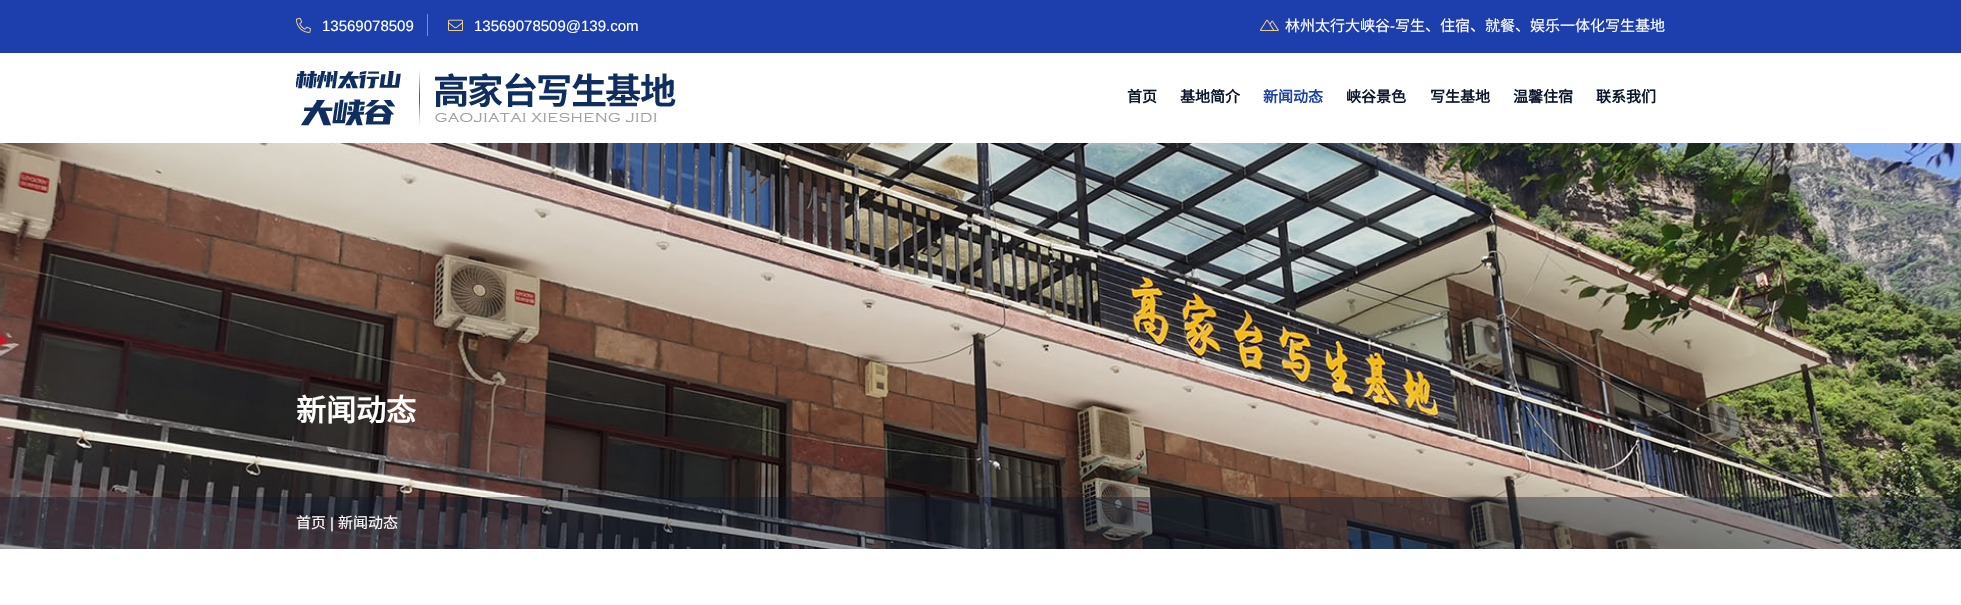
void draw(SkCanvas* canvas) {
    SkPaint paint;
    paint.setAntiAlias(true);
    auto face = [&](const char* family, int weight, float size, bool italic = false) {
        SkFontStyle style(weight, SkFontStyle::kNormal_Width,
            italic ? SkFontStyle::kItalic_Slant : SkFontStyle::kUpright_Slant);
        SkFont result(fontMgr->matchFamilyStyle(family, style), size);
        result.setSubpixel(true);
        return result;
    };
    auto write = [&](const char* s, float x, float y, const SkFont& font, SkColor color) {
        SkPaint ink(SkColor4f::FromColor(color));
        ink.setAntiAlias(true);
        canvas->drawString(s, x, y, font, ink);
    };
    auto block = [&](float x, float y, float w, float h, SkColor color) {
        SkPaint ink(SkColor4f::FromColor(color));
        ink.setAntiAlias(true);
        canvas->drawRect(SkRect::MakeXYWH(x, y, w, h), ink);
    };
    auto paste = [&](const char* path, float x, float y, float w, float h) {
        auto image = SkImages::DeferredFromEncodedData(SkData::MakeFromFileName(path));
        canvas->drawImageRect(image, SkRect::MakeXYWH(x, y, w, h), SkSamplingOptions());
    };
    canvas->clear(SK_ColorWHITE);
    block(0, 0, 1961, 53, SkColorSetRGB(29, 63, 173));
    paste("pic1.png", 296, 17, 15, 16);
    auto kFont1 = face("Liberation Sans", 400, 15);
    write("13569078509", 322, 31, kFont1, SK_ColorWHITE);
    block(427, 14, 1, 22, SkColorSetRGB(119, 140, 206));
    paste("pic2.png", 448, 19, 15, 12);
    write("13569078509@139.com", 474, 31, kFont1, SK_ColorWHITE);
    paste("pic3.png", 1260, 19, 19, 12);
    auto kFont2 = face("Noto Sans CJK SC", 400, 15);
    write("林州太行大峡谷", 1285, 31, kFont2, SK_ColorWHITE);
    write("-", 1390, 31, kFont1, SK_ColorWHITE);
    write("写生、住宿、就餐、娱乐一体化写生基地", 1395, 31, kFont2, SK_ColorWHITE);
    paste("pic4.png", 296, 70, 380, 56);
    auto kFont3 = face("Noto Sans CJK SC", 700, 15);
    write("首页", 1127, 102, kFont3, SkColorSetRGB(9, 22, 42));
    write("基地简介", 1180, 102, kFont3, SkColorSetRGB(9, 22, 42));
    write("新闻动态", 1263, 102, kFont3, SkColorSetRGB(29, 63, 173));
    write("峡谷景色", 1346, 102, kFont3, SkColorSetRGB(9, 22, 42));
    write("写生基地", 1430, 102, kFont3, SkColorSetRGB(9, 22, 42));
    write("温馨住宿", 1513, 102, kFont3, SkColorSetRGB(9, 22, 42));
    write("联系我们", 1596, 102, kFont3, SkColorSetRGB(9, 22, 42));
    paste("pic5.png", 0, 143, 1961, 406);
    auto kFont4 = face("Noto Sans CJK SC", 700, 30);
    write("新闻动态", 296, 421, kFont4, SK_ColorWHITE);
    block(0, 497, 1961, 52, SkColorSetARGB(102, 9, 22, 42));
    write("首页", 296, 528, kFont2, SK_ColorWHITE);
    write("|", 330, 528, kFont1, SK_ColorWHITE);
    write("新闻动态", 338, 528, kFont2, SK_ColorWHITE);
}
